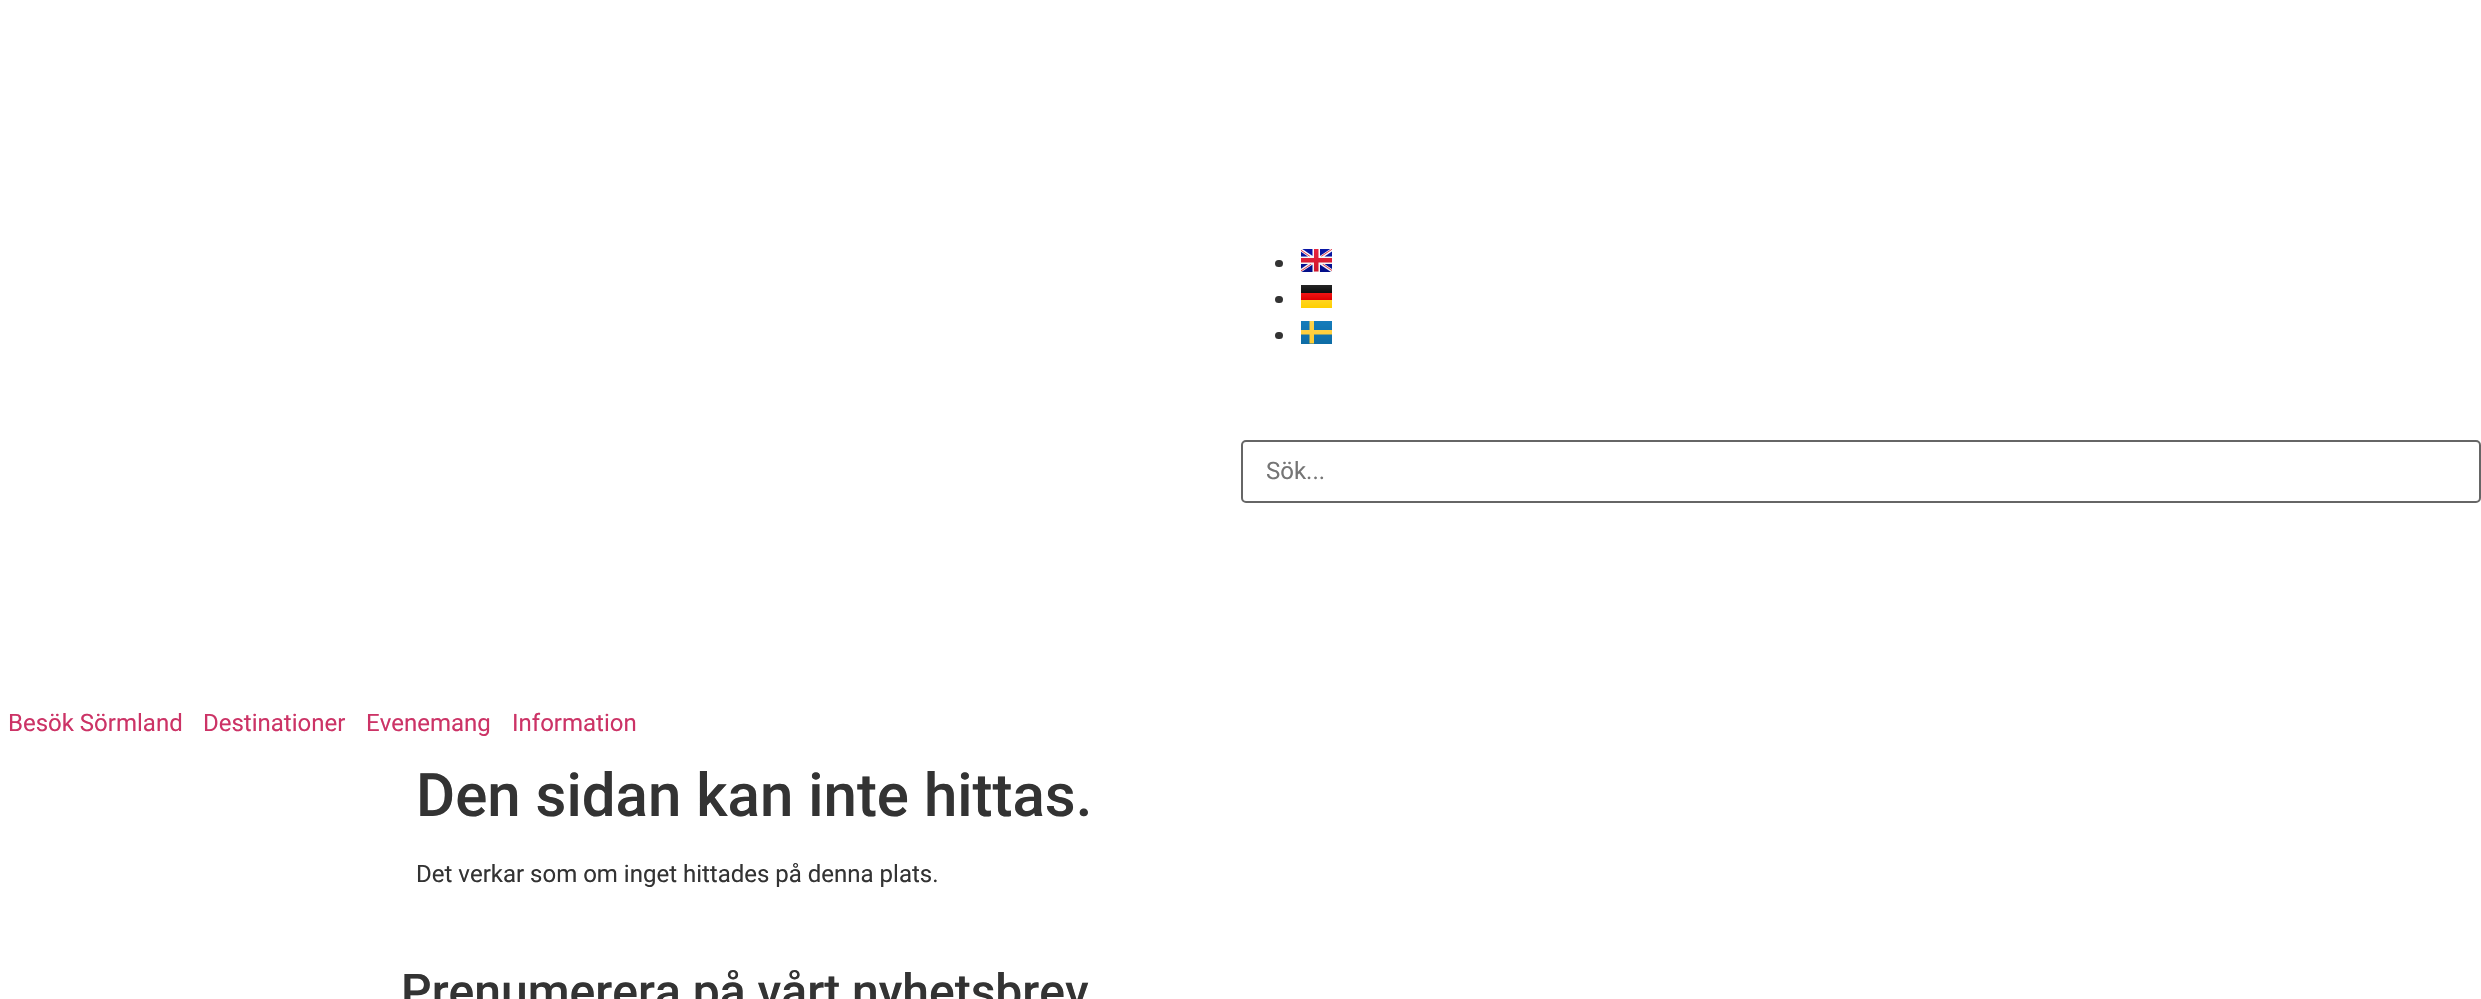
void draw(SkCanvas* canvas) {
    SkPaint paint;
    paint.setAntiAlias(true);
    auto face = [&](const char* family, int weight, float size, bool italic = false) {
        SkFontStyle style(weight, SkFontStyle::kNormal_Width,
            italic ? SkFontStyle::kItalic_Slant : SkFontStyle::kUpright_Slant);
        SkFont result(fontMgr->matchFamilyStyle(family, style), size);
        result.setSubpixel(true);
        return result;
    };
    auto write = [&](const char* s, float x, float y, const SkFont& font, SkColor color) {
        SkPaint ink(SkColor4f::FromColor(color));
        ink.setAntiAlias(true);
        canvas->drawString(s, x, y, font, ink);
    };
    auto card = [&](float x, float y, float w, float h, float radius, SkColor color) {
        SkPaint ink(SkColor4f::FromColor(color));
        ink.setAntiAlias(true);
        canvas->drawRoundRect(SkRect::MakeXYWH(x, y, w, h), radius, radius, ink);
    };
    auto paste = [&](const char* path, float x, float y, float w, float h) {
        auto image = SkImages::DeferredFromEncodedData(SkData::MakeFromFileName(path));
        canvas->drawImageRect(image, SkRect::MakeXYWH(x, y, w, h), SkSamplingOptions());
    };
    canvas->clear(SK_ColorWHITE);
    card(1275, 260, 8, 7, 3.5f, SkColorSetRGB(51, 51, 51));
    paste("pic1.png", 1301, 249, 31, 23);
    {
        const SkColor colors[] = {SkColorSetRGB(38, 38, 38), SkColorSetRGB(13, 13, 13)};
        const float stops[] = {0, 1};
        const SkPoint ends[] = {{1316, 285}, {1316, 293}};
        paint.setShader(SkGradientShader::MakeLinear(ends, colors, stops, 2, SkTileMode::kClamp));
        paint.setAlpha(255);
    }
    canvas->drawRect(SkRect::MakeXYWH(1301, 285, 31, 8), paint);
    card(1275, 296, 8, 7, 3.5f, SkColorSetRGB(51, 51, 51));
    {
        const SkColor colors[] = {SkColorSetRGB(240, 21, 21), SkColorSetRGB(222, 0, 0)};
        const float stops[] = {0, 1};
        const SkPoint ends[] = {{1316, 293}, {1316, 300}};
        paint.setShader(SkGradientShader::MakeLinear(ends, colors, stops, 2, SkTileMode::kClamp));
        paint.setAlpha(255);
    }
    canvas->drawRect(SkRect::MakeXYWH(1301, 293, 31, 7), paint);
    {
        const SkColor colors[] = {SkColorSetRGB(255, 213, 33), SkColorSetRGB(255, 207, 0)};
        const float stops[] = {0, 1};
        const SkPoint ends[] = {{1316, 300}, {1316, 308}};
        paint.setShader(SkGradientShader::MakeLinear(ends, colors, stops, 2, SkTileMode::kClamp));
        paint.setAlpha(255);
    }
    canvas->drawRect(SkRect::MakeXYWH(1301, 300, 31, 8), paint);
    card(1275, 332, 8, 7, 3.5f, SkColorSetRGB(51, 51, 51));
    paste("pic2.png", 1301, 321, 31, 23);
    paint.setStyle(SkPaint::kStroke_Style);
    paint.setStrokeWidth(2);
    paint.setShader(nullptr);
    paint.setColor(SkColorSetRGB(102, 102, 102));
    canvas->drawRoundRect(SkRect::MakeXYWH(1242, 441, 1238, 61), 4, 4, paint);
    auto kFont1 = face("Roboto", 400, 24);
    write("Sök...", 1266, 479, kFont1, SkColorSetRGB(117, 117, 117));
    write("Besök Sörmland", 8, 731, kFont1, SkColorSetRGB(204, 51, 102));
    write("Destinationer", 203, 731, kFont1, SkColorSetRGB(204, 51, 102));
    write("Evenemang", 366, 731, kFont1, SkColorSetRGB(204, 51, 102));
    write("Information", 512, 731, kFont1, SkColorSetRGB(204, 51, 102));
    auto kFont2 = face("Roboto", 500, 60);
    write("Den sidan kan inte hittas.", 416, 816, kFont2, SkColorSetRGB(51, 51, 51));
    write("Det verkar som om inget hittades på denna plats.", 416, 882, kFont1, SkColorSetRGB(51, 51, 51));
    auto kFont3 = face("Roboto", 500, 48);
    write("Prenumerera på vårt nyhetsbrev", 401, 1008, kFont3, SkColorSetRGB(51, 51, 51));
}
